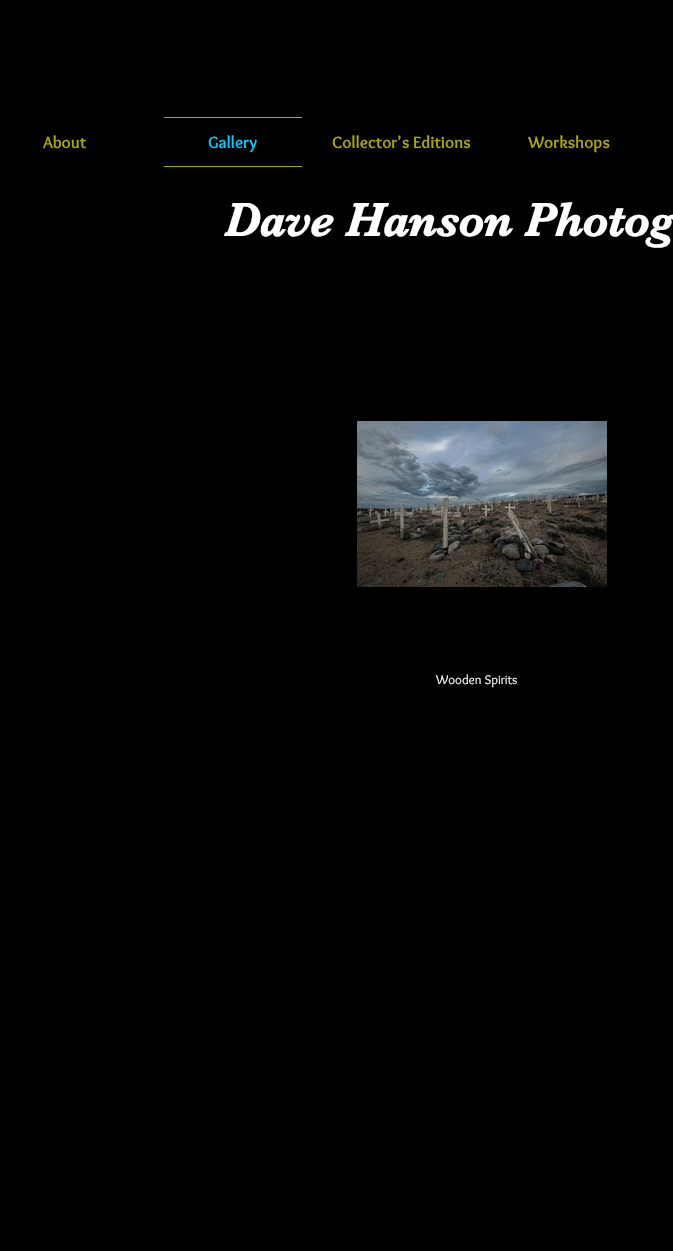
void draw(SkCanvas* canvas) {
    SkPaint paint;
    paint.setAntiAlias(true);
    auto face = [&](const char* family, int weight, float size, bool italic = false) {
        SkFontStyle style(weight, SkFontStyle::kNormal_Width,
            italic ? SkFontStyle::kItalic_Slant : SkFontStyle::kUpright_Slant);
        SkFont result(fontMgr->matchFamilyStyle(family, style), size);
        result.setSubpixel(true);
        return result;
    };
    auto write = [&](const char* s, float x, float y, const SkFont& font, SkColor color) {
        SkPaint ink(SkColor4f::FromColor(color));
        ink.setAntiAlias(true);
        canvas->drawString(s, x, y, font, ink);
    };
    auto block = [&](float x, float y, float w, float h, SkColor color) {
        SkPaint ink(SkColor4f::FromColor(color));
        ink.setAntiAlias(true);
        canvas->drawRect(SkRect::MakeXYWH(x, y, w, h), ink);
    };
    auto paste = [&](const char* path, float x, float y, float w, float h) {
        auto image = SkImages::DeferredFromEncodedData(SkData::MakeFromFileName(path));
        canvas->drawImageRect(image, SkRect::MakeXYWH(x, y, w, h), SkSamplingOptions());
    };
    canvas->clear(SK_ColorBLACK);
    auto kFont1 = face("Overlock", 700, 17);
    write("About", 43, 148, kFont1, SkColorSetRGB(169, 169, 0));
    block(164, 117, 138, 1, SkColorSetRGB(169, 169, 0));
    block(164, 166, 138, 1, SkColorSetRGB(169, 169, 0));
    write("Gallery", 208, 148, kFont1, SkColorSetRGB(0, 203, 255));
    write("Collector's Editions", 332, 148, kFont1, SkColorSetRGB(169, 169, 0));
    write("Workshops", 528, 148, kFont1, SkColorSetRGB(169, 169, 0));
    auto kFont2 = face("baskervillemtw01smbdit", 700, 48);
    write("Dave Hanson Photog", 224, 236, kFont2, SK_ColorWHITE);
    paste("pic1.png", 357, 421, 250, 166);
    auto kFont3 = face("Overlock", 400, 13);
    write("Wooden Spirits", 436, 684, kFont3, SK_ColorWHITE);
}
